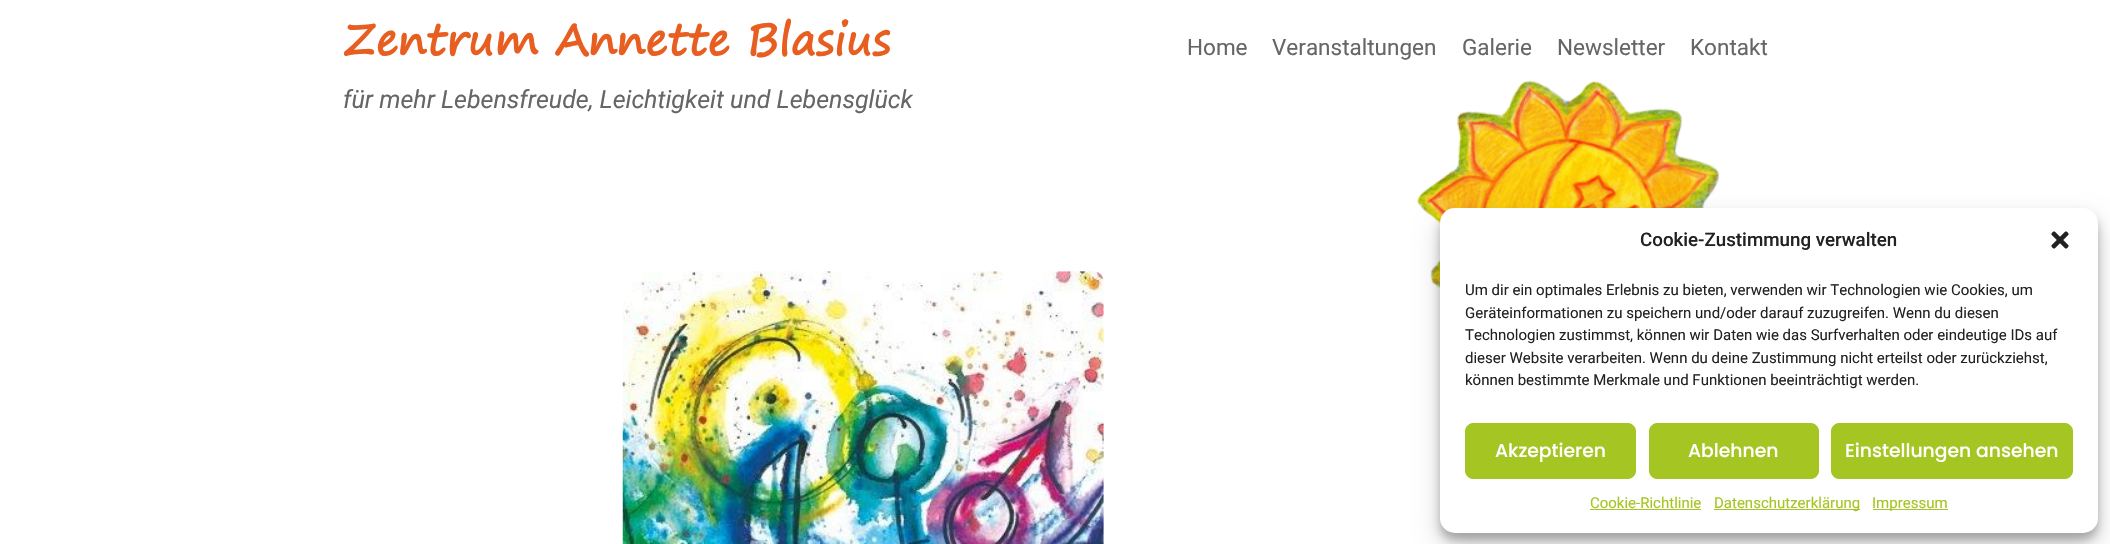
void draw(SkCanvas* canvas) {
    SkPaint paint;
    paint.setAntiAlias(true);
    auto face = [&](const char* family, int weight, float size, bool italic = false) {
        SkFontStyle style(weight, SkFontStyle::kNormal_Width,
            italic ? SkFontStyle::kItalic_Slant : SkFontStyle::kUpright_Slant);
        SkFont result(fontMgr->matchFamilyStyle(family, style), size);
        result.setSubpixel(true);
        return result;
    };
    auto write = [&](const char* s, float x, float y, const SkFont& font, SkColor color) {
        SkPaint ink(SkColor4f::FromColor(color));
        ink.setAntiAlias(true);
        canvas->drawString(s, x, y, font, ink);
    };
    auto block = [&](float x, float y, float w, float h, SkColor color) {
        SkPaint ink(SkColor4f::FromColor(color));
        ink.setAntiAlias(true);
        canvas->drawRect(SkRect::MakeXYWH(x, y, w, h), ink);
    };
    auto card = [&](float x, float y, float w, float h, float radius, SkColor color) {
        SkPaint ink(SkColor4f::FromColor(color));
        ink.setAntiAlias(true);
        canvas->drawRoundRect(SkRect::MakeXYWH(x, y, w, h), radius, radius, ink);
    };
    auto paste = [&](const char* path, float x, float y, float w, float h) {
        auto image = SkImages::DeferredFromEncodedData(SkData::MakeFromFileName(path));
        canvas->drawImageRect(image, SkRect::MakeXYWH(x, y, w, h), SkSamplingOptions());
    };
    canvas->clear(SK_ColorWHITE);
    auto kFont1 = face("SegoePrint", 700, 42.75f);
    write("Zentrum Annette Blasius", 343, 55, kFont1, SkColorSetRGB(231, 94, 32));
    auto kFont2 = face("Roboto", 400, 25, true);
    write("für mehr Lebensfreude, Leichtigkeit und Lebensglück", 343, 108, kFont2, SkColorSetRGB(102, 102, 102));
    auto kFont3 = face("Roboto", 400, 22.5f);
    write("Home", 1187, 55, kFont3, SkColorSetRGB(102, 102, 102));
    write("Veranstaltungen", 1272, 55, kFont3, SkColorSetRGB(102, 102, 102));
    write("Galerie", 1462, 55, kFont3, SkColorSetRGB(102, 102, 102));
    write("Newsletter", 1557, 55, kFont3, SkColorSetRGB(102, 102, 102));
    write("Kontakt", 1690, 55, kFont3, SkColorSetRGB(102, 102, 102));
    paste("pic1.png", 1416, 80, 304, 209);
    paste("pic2.png", 622, 271, 482, 273);
    paint.setColor(SkColorSetARGB(59, 0, 0, 0));
    paint.setMaskFilter(SkMaskFilter::MakeBlur(kNormal_SkBlurStyle, 4));
    canvas->drawRoundRect(SkRect::MakeXYWH(1440, 215, 658, 325), 15, 15, paint);
    paint.setMaskFilter(nullptr);
    paint.setColor(SkColorSetARGB(48, 0, 0, 0));
    paint.setMaskFilter(SkMaskFilter::MakeBlur(kNormal_SkBlurStyle, 12.5f));
    canvas->drawRoundRect(SkRect::MakeXYWH(1440, 220, 658, 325), 15, 15, paint);
    paint.setMaskFilter(nullptr);
    card(1440, 208, 658, 325, 15, SK_ColorWHITE);
    auto kFont4 = face("Roboto", 500, 18.75f);
    write("Cookie-Zustimmung verwalten", 1640, 246, kFont4, SkColorSetRGB(34, 34, 34));
    paste("pic3.png", 2051, 231, 18, 18);
    auto kFont5 = face("Roboto", 400, 15);
    write("Um dir ein optimales Erlebnis zu bieten, verwenden wir Technologien wie Cookies, um", 1465, 295, kFont5, SkColorSetRGB(34, 34, 34));
    write("Geräteinformationen zu speichern und/oder darauf zuzugreifen. Wenn du diesen", 1465, 318, kFont5, SkColorSetRGB(34, 34, 34));
    write("Technologien zustimmst, können wir Daten wie das Surfverhalten oder eindeutige IDs auf", 1465, 340, kFont5, SkColorSetRGB(34, 34, 34));
    write("dieser Website verarbeiten. Wenn du deine Zustimmung nicht erteilst oder zurückziehst,", 1465, 363, kFont5, SkColorSetRGB(34, 34, 34));
    write("können bestimmte Merkmale und Funktionen beeinträchtigt werden.", 1465, 385, kFont5, SkColorSetRGB(34, 34, 34));
    paint.setColor(SkColorSetRGB(165, 197, 35));
    canvas->drawRoundRect(SkRect::MakeXYWH(1465.5f, 423.5f, 170, 55), 7.5f, 7.5f, paint);
    paint.setStyle(SkPaint::kStroke_Style);
    paint.setStrokeWidth(1);
    canvas->drawRoundRect(SkRect::MakeXYWH(1465.5f, 423.5f, 170, 55), 7.5f, 7.5f, paint);
    auto kFont6 = face("Poppins", 500, 18.75f);
    write("Akzeptieren", 1495, 457, kFont6, SK_ColorWHITE);
    paint.setStyle(SkPaint::kFill_Style);
    canvas->drawRoundRect(SkRect::MakeXYWH(1649.5f, 423.5f, 169, 55), 7.5f, 7.5f, paint);
    paint.setStyle(SkPaint::kStroke_Style);
    canvas->drawRoundRect(SkRect::MakeXYWH(1649.5f, 423.5f, 169, 55), 7.5f, 7.5f, paint);
    write("Ablehnen", 1688, 457, kFont6, SK_ColorWHITE);
    paint.setStyle(SkPaint::kFill_Style);
    canvas->drawRoundRect(SkRect::MakeXYWH(1831.5f, 423.5f, 241, 55), 7.5f, 7.5f, paint);
    paint.setStyle(SkPaint::kStroke_Style);
    canvas->drawRoundRect(SkRect::MakeXYWH(1831.5f, 423.5f, 241, 55), 7.5f, 7.5f, paint);
    write("Einstellungen ansehen", 1845, 457, kFont6, SK_ColorWHITE);
    write("Cookie-Richtlinie", 1590, 508, kFont5, SkColorSetRGB(165, 197, 35));
    block(1590, 509, 111, 1, SkColorSetRGB(165, 197, 35));
    block(1714, 509, 146, 1, SkColorSetRGB(165, 197, 35));
    write("Datenschutzerklärung", 1714, 508, kFont5, SkColorSetRGB(165, 197, 35));
    block(1873, 509, 75, 1, SkColorSetRGB(165, 197, 35));
    write("Impressum", 1872, 508, kFont5, SkColorSetRGB(165, 197, 35));
}
